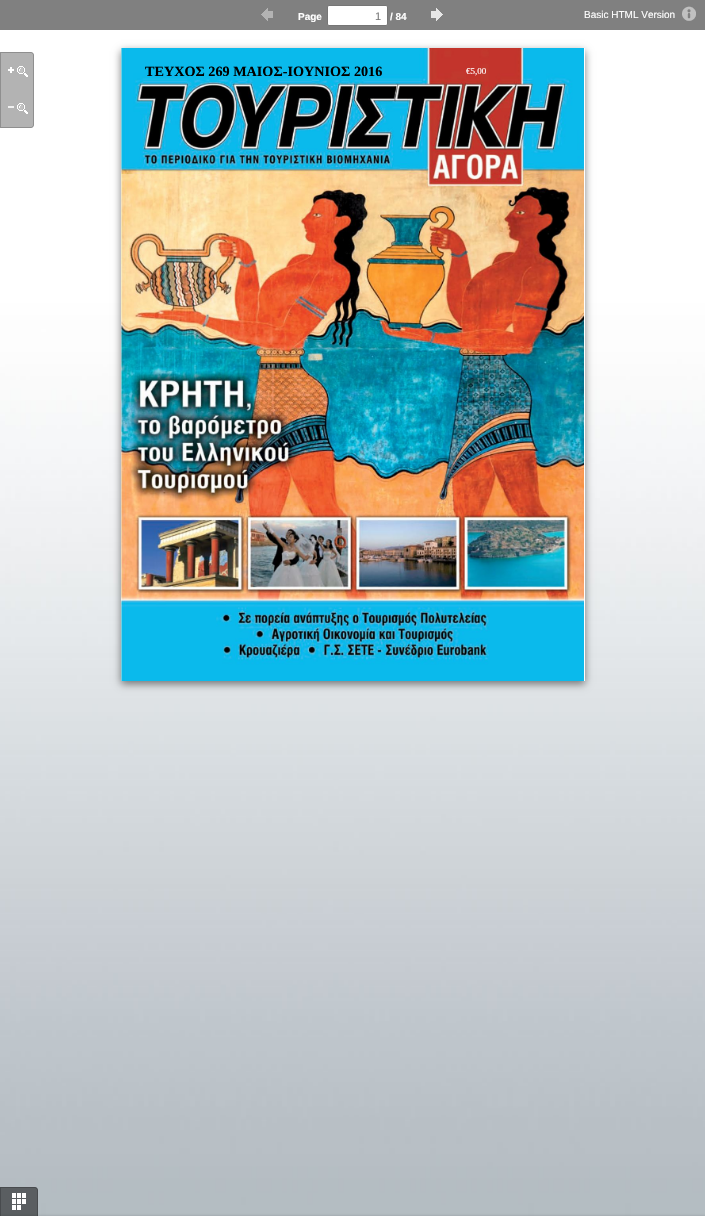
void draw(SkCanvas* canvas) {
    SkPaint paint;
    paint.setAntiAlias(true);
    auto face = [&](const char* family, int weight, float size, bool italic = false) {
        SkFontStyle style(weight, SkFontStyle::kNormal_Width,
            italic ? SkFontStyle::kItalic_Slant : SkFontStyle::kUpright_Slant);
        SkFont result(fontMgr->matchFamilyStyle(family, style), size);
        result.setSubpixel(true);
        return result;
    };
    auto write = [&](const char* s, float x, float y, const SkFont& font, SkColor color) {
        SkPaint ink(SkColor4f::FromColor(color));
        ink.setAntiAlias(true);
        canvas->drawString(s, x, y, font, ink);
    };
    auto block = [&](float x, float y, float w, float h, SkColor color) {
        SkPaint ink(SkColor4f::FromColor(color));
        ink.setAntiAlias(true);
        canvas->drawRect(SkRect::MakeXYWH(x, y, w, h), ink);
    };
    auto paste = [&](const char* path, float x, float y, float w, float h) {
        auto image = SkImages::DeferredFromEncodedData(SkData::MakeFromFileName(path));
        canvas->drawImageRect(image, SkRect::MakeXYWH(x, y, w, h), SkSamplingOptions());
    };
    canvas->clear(SK_ColorWHITE);
    block(0, 0, 705, 30, SkColorSetRGB(128, 128, 128));
    paste("pic1.png", 261, 8, 12, 13);
    auto kFont1 = face("Liberation Sans", 700, 10);
    write("Page", 298, 20, kFont1, SK_ColorWHITE);
    paint.setColor(SK_ColorWHITE);
    canvas->drawRoundRect(SkRect::MakeXYWH(327.5f, 5.5f, 60, 20), 1.5f, 1.5f, paint);
    paint.setStyle(SkPaint::kStroke_Style);
    paint.setStrokeWidth(1);
    paint.setColor(SkColorSetRGB(118, 118, 118));
    canvas->drawRoundRect(SkRect::MakeXYWH(327.5f, 5.5f, 60, 20), 1.5f, 1.5f, paint);
    auto kFont2 = face("Liberation Sans", 400, 11);
    write("1", 375, 20, kFont2, SkColorSetRGB(117, 117, 117));
    write("/ 84", 390, 20, kFont1, SK_ColorWHITE);
    paste("pic2.png", 431, 8, 12, 13);
    auto kFont3 = face("Liberation Sans", 400, 10);
    write("Basic HTML Version", 584, 18, kFont3, SK_ColorWHITE);
    paste("pic3.png", 682, 6, 14, 15);
    paste("pic4.png", 0, 30, 705, 1186);
    paint.setStyle(SkPaint::kFill_Style);
    paint.setColor(SkColorSetRGB(179, 179, 179));
    canvas->drawPath(SkPathBuilder().moveTo(0, 52).lineTo(31, 52).cubicTo(32.5f, 52, 34, 53.5f, 34, 55).lineTo(34, 125).cubicTo(34, 126.5f, 32.5f, 128, 31, 128).lineTo(0, 128).close().detach(), paint);
    paint.setStyle(SkPaint::kStroke_Style);
    paint.setColor(SkColorSetARGB(51, 0, 0, 0));
    canvas->drawPath(SkPathBuilder().moveTo(0.5f, 52.5f).lineTo(31, 52.5f).cubicTo(32.5f, 52.5f, 33.5f, 53.5f, 33.5f, 55).lineTo(33.5f, 125).cubicTo(33.5f, 126.5f, 32.5f, 127.5f, 31, 127.5f).lineTo(0.5f, 127.5f).close().detach(), paint);
    paste("pic5.png", 8, 66, 20, 11);
    paste("pic6.png", 8, 103, 20, 11);
    paint.setStyle(SkPaint::kFill_Style);
    paint.setColor(SkColorSetARGB(128, 0, 0, 0));
    paint.setMaskFilter(SkMaskFilter::MakeBlur(kNormal_SkBlurStyle, 4));
    canvas->drawRect(SkRect::MakeXYWH(121, 51, 464, 633), paint);
    paint.setMaskFilter(nullptr);
    block(584, 48, 1, 633, SK_ColorWHITE);
    paste("pic7.png", 121, 48, 463, 633);
    canvas->save();
    canvas->clipRect(SkRect::MakeXYWH(145, 66, 241, 10));
    auto kFont4 = face("Liberation Serif", 700, 14.2f);
    write("ΤΕΥΧΟΣ 269 ΜΑΪΟΣ-ΙΟΥΝΙΟΣ 2016", 145, 76, kFont4, SK_ColorBLACK);
    canvas->restore();
    auto kFont5 = face("Liberation Serif", 400, 9);
    write("€5,00", 466, 74, kFont5, SK_ColorWHITE);
    paint.setMaskFilter(SkMaskFilter::MakeBlur(kNormal_SkBlurStyle, 2));
    canvas->drawRect(SkRect::MakeXYWH(0, 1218, 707, 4), paint);
    paint.setMaskFilter(nullptr);
    canvas->drawPath(SkPathBuilder().moveTo(0, 1187).lineTo(35, 1187).cubicTo(36.5f, 1187, 38, 1188.5f, 38, 1190).lineTo(38, 1216).lineTo(0, 1216).close().detach(), paint);
    paste("pic8.png", 12, 1193, 14, 17);
    paint.setColor(SkColorSetARGB(51, 0, 0, 0));
    canvas->drawPath(SkPathBuilder(SkPathFillType::kEvenOdd).moveTo(0, 1187).lineTo(35, 1187).cubicTo(36.5f, 1187, 38, 1188.5f, 38, 1190).lineTo(38, 1216).lineTo(0, 1216).close().moveTo(1, 1188).lineTo(35, 1188).cubicTo(36, 1188, 37, 1189, 37, 1190).lineTo(37, 1216).lineTo(1, 1216).close().detach(), paint);
}
